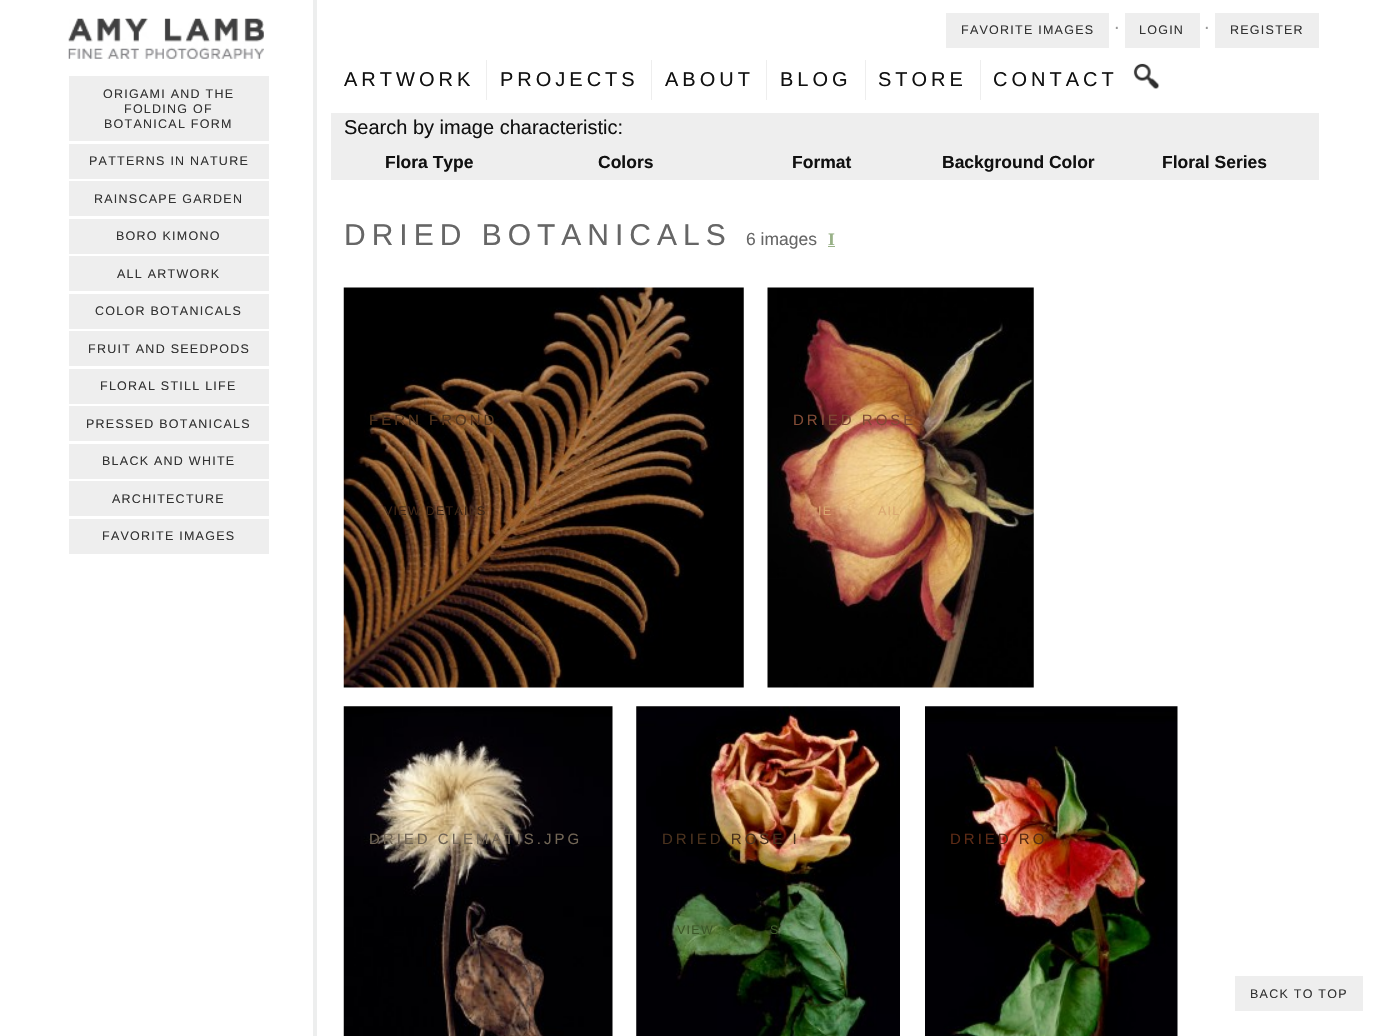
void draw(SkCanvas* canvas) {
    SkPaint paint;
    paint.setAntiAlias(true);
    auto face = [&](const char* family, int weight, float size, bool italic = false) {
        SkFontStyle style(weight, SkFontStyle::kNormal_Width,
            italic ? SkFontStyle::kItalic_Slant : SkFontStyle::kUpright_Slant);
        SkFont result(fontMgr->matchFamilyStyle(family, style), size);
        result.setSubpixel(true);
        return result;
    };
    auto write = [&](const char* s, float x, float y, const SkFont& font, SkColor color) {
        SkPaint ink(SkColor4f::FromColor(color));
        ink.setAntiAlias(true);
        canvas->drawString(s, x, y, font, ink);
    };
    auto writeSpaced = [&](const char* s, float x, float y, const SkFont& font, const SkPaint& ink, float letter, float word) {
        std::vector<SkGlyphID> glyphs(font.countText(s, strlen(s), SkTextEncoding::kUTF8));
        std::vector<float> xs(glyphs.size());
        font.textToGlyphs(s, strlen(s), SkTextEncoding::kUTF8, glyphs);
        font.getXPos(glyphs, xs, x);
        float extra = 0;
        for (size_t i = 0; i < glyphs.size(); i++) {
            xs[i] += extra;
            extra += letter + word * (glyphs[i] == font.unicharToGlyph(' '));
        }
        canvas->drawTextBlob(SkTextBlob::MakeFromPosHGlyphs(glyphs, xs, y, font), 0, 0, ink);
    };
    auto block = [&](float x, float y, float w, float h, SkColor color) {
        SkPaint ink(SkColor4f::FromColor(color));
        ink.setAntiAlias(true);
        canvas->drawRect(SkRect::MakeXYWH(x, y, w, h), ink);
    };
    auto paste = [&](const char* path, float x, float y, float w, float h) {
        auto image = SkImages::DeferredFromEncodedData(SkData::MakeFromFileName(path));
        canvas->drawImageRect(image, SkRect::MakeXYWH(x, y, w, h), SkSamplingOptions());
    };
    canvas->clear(SK_ColorWHITE);
    block(313, 0, 4, 1036, SkColorSetRGB(237, 238, 238));
    block(946, 13, 163, 35, SkColorSetRGB(238, 238, 238));
    auto kFont1 = face("Liberation Sans", 400, 12.5f);
    paint.setColor(SkColorSetRGB(51, 51, 51));
    writeSpaced("FAVORITE IMAGES", 961, 34, kFont1, paint, 1.25f, 0);
    auto kFont2 = face("DejaVu Sans", 400, 17.5f);
    write("⋅", 1114, 34, kFont2, SkColorSetRGB(153, 153, 153));
    block(1125, 13, 75, 35, SkColorSetRGB(238, 238, 238));
    writeSpaced("LOGIN", 1139, 34, kFont1, paint, 1.25f, 0);
    write("⋅", 1204, 34, kFont2, SkColorSetRGB(153, 153, 153));
    block(1215, 13, 104, 35, SkColorSetRGB(238, 238, 238));
    writeSpaced("REGISTER", 1230, 34, kFont1, paint, 1.25f, 0);
    block(486, 60, 1, 40, SkColorSetRGB(238, 238, 238));
    auto kFont3 = face("Liberation Sans", 400, 20);
    paint.setColor(SkColorSetRGB(17, 17, 17));
    writeSpaced("ARTWORK", 344, 86, kFont3, paint, 4, 0);
    block(651, 60, 1, 40, SkColorSetRGB(238, 238, 238));
    writeSpaced("PROJECTS", 500, 86, kFont3, paint, 4, 0);
    block(766, 60, 1, 40, SkColorSetRGB(238, 238, 238));
    writeSpaced("ABOUT", 665, 86, kFont3, paint, 4, 0);
    block(865, 60, 1, 40, SkColorSetRGB(238, 238, 238));
    writeSpaced("BLOG", 780, 86, kFont3, paint, 4, 0);
    block(980, 60, 1, 40, SkColorSetRGB(238, 238, 238));
    writeSpaced("STORE", 878, 86, kFont3, paint, 4, 0);
    writeSpaced("CONTACT", 993, 86, kFont3, paint, 4, 0);
    paste("pic1.png", 1133, 63, 27, 26);
    paste("pic2.png", 68, 18, 196, 41);
    block(69, 76, 200, 65, SkColorSetRGB(238, 238, 238));
    paint.setColor(SkColorSetRGB(51, 51, 51));
    writeSpaced("ORIGAMI AND THE", 103, 98, kFont1, paint, 1.25f, 0);
    writeSpaced("FOLDING OF", 124, 113, kFont1, paint, 1.25f, 0);
    writeSpaced("BOTANICAL FORM", 104, 128, kFont1, paint, 1.25f, 0);
    block(69, 144, 200, 35, SkColorSetRGB(238, 238, 238));
    writeSpaced("PATTERNS IN NATURE", 89, 165, kFont1, paint, 1.25f, 0);
    block(69, 181, 200, 35, SkColorSetRGB(238, 238, 238));
    writeSpaced("RAINSCAPE GARDEN", 94, 203, kFont1, paint, 1.25f, 0);
    block(69, 219, 200, 35, SkColorSetRGB(238, 238, 238));
    writeSpaced("BORO KIMONO", 116, 240, kFont1, paint, 1.25f, 0);
    block(69, 256, 200, 35, SkColorSetRGB(238, 238, 238));
    writeSpaced("ALL ARTWORK", 117, 278, kFont1, paint, 1.25f, 0);
    block(69, 294, 200, 35, SkColorSetRGB(238, 238, 238));
    writeSpaced("COLOR BOTANICALS", 95, 315, kFont1, paint, 1.25f, 0);
    block(69, 331, 200, 35, SkColorSetRGB(238, 238, 238));
    writeSpaced("FRUIT AND SEEDPODS", 88, 353, kFont1, paint, 1.25f, 0);
    block(69, 369, 200, 35, SkColorSetRGB(238, 238, 238));
    writeSpaced("FLORAL STILL LIFE", 100, 390, kFont1, paint, 1.25f, 0);
    block(69, 406, 200, 35, SkColorSetRGB(238, 238, 238));
    writeSpaced("PRESSED BOTANICALS", 86, 428, kFont1, paint, 1.25f, 0);
    block(69, 444, 200, 35, SkColorSetRGB(238, 238, 238));
    writeSpaced("BLACK AND WHITE", 102, 465, kFont1, paint, 1.25f, 0);
    block(69, 481, 200, 35, SkColorSetRGB(238, 238, 238));
    writeSpaced("ARCHITECTURE", 112, 503, kFont1, paint, 1.25f, 0);
    block(69, 519, 200, 35, SkColorSetRGB(238, 238, 238));
    writeSpaced("FAVORITE IMAGES", 102, 540, kFont1, paint, 1.25f, 0);
    block(331, 113, 988, 67, SkColorSetRGB(238, 238, 238));
    write("Search by image characteristic:", 344, 134, kFont3, SkColorSetRGB(17, 17, 17));
    auto kFont4 = face("Liberation Sans", 700, 17.5f);
    write("Flora Type", 385, 168, kFont4, SkColorSetRGB(17, 17, 17));
    write("Colors", 598, 168, kFont4, SkColorSetRGB(17, 17, 17));
    write("Format", 792, 168, kFont4, SkColorSetRGB(17, 17, 17));
    write("Background Color", 942, 168, kFont4, SkColorSetRGB(17, 17, 17));
    write("Floral Series", 1162, 168, kFont4, SkColorSetRGB(17, 17, 17));
    auto kFont5 = face("Liberation Sans", 400, 30);
    paint.setColor(SkColorSetRGB(102, 102, 102));
    writeSpaced("DRIED BOTANICALS", 344, 245, kFont5, paint, 6, 0);
    auto kFont6 = face("Liberation Sans", 400, 17.5f);
    write("6 images", 746, 245, kFont6, SkColorSetRGB(102, 102, 102));
    auto kFont7 = face("Liberation Serif", 700, 17.5f);
    write("I", 828, 245, kFont7, SkColorSetRGB(152, 177, 135));
    block(828, 246, 7, 1, SkColorSetRGB(152, 177, 135));
    paste("pic3.png", 343, 287, 401, 401);
    auto kFont8 = face("Liberation Sans", 400, 15);
    paint.setColor(SkColorSetRGB(83, 53, 29));
    writeSpaced("FERN FROND", 369, 425, kFont8, paint, 3, 0);
    paint.setColor(SkColorSetRGB(62, 38, 22));
    writeSpaced("VIEW DETAILS", 384, 515, kFont1, paint, 1.25f, 0);
    paste("pic4.png", 767, 287, 267, 401);
    paint.setColor(SkColorSetRGB(129, 75, 53));
    writeSpaced("DRIED ROSE", 793, 425, kFont8, paint, 3, 0);
    paint.setColor(SkColorSetRGB(219, 168, 113));
    writeSpaced("IE", 818, 515, kFont1, paint, 1.25f, 0);
    writeSpaced("AIL", 878, 515, kFont1, paint, 1.25f, 0);
    paste("pic5.png", 343, 706, 270, 330);
    paint.setColor(SkColorSetRGB(113, 101, 85));
    writeSpaced("DRIED CLEMATIS.JPG", 369, 844, kFont8, paint, 3, 0);
    paste("pic6.png", 636, 706, 264, 330);
    paint.setColor(SkColorSetRGB(74, 49, 29));
    writeSpaced("DRIED ROSE I", 662, 844, kFont8, paint, 3, 0);
    paint.setColor(SkColorSetRGB(60, 88, 40));
    writeSpaced("VIEW", 677, 934, kFont1, paint, 1.25f, 0);
    writeSpaced("S", 770, 934, kFont1, paint, 1.25f, 0);
    paste("pic7.png", 925, 706, 253, 330);
    paint.setColor(SkColorSetRGB(91, 42, 21));
    writeSpaced("DRIED RO", 950, 844, kFont8, paint, 3, 0);
    block(1235, 976, 128, 35, SkColorSetRGB(238, 238, 238));
    paint.setColor(SkColorSetRGB(51, 51, 51));
    writeSpaced("BACK TO TOP", 1250, 998, kFont1, paint, 1.25f, 0);
}
